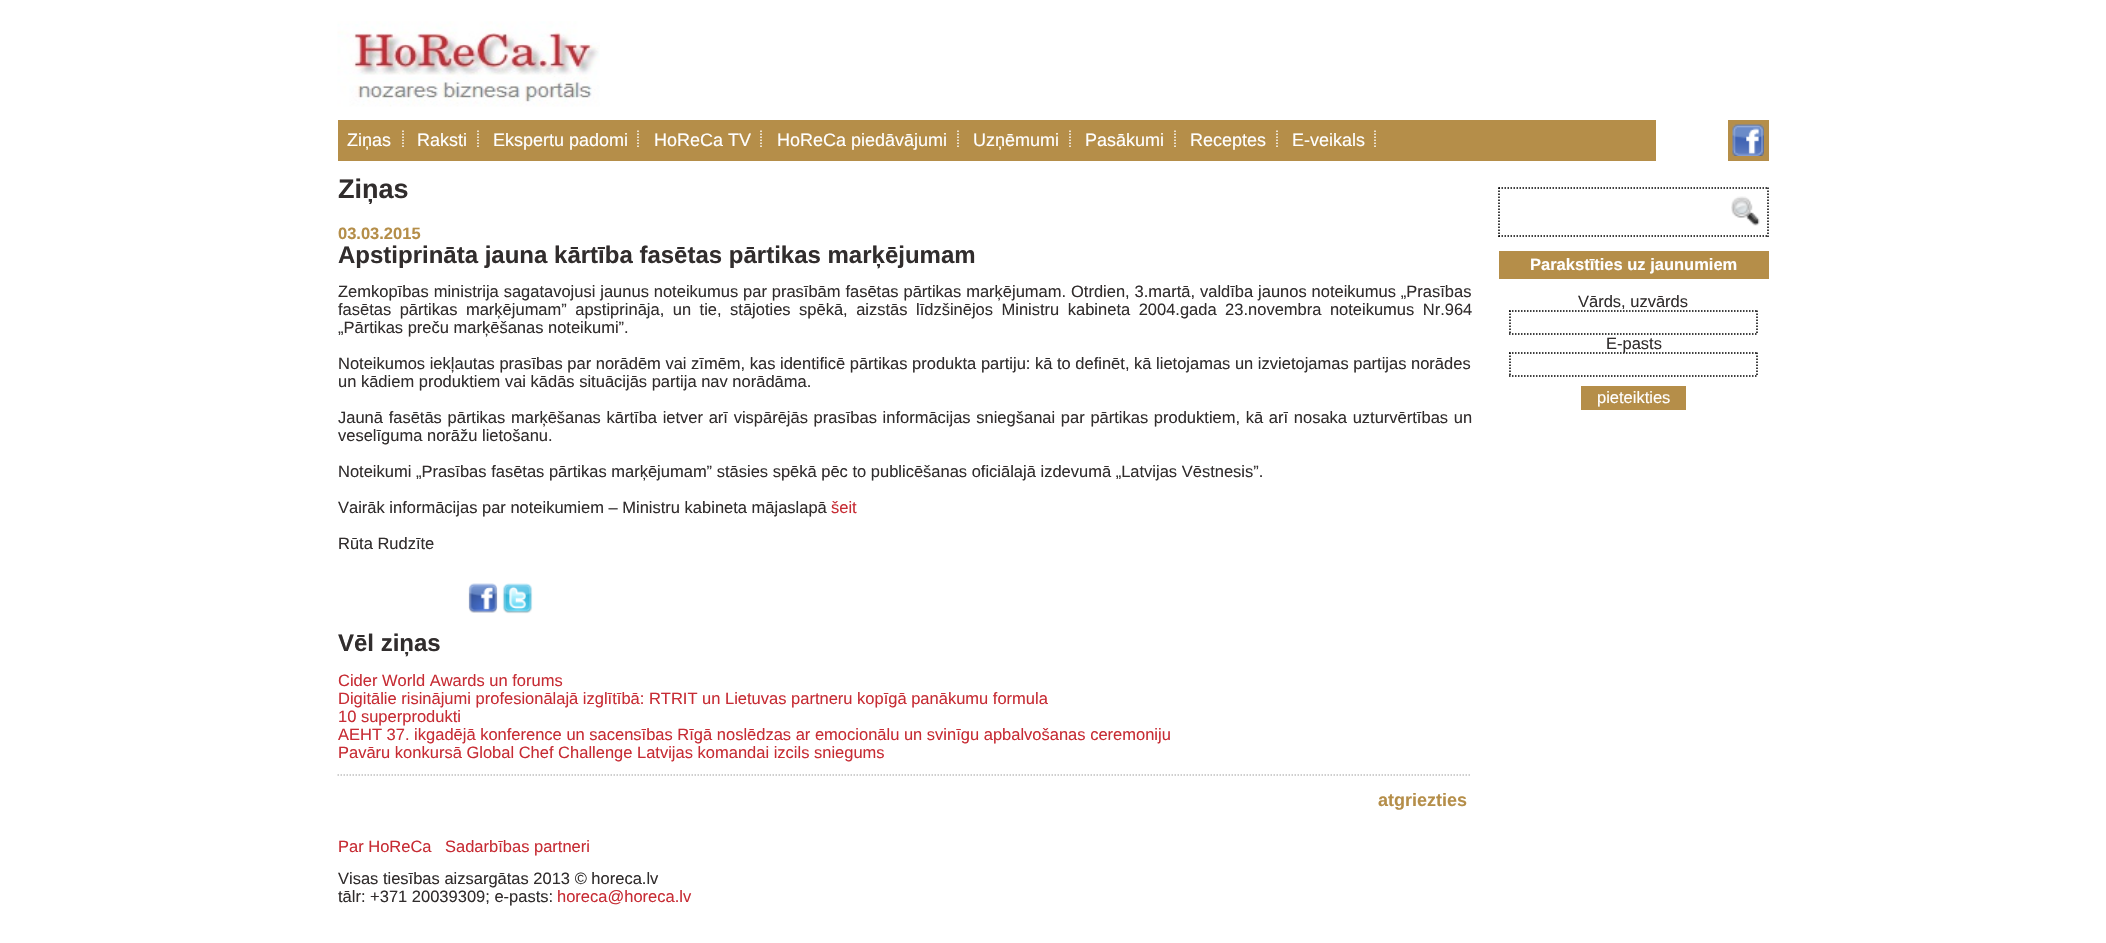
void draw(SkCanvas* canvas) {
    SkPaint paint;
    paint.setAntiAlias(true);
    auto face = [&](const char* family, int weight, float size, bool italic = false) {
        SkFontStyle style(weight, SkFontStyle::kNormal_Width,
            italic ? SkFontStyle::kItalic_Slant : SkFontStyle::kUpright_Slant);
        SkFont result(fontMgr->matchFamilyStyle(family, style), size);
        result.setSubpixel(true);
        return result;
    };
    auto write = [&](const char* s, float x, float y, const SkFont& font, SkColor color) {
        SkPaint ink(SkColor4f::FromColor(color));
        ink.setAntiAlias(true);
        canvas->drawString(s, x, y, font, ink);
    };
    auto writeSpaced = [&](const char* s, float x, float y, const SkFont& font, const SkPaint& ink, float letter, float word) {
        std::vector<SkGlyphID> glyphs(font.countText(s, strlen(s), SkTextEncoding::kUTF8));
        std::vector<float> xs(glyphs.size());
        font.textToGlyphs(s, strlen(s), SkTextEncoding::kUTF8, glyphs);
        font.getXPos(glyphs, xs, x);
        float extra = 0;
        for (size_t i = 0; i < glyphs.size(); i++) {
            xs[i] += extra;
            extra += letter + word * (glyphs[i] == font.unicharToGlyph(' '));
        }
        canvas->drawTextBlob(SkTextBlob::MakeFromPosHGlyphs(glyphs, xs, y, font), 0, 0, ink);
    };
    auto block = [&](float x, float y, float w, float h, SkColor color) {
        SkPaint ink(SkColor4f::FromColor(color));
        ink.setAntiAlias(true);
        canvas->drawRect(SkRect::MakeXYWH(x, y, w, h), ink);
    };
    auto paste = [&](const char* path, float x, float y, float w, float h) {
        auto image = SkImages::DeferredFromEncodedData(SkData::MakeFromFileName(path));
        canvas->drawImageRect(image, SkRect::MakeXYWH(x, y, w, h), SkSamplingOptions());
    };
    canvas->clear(SK_ColorWHITE);
    paste("pic1.png", 337, 21, 263, 86);
    block(338, 120, 1318, 41, SkColorSetRGB(181, 142, 73));
    auto kFont1 = face("Liberation Sans", 400, 18);
    write("Ziņas", 347, 146, kFont1, SK_ColorWHITE);
    paint.setStyle(SkPaint::kStroke_Style);
    paint.setStrokeWidth(1.5f);
    paint.setColor(SK_ColorWHITE);
    paint.setPathEffect(SkDashPathEffect::Make({{1.5f, 1.5f}}, 0));
    canvas->drawPath(SkPathBuilder().moveTo(403, 130.5f).lineTo(403, 148.5f).detach(), paint);
    paint.setPathEffect(nullptr);
    write("Raksti", 417, 146, kFont1, SK_ColorWHITE);
    paint.setPathEffect(SkDashPathEffect::Make({{1.5f, 1.5f}}, 0));
    canvas->drawPath(SkPathBuilder().moveTo(478, 130.5f).lineTo(478, 148.5f).detach(), paint);
    paint.setPathEffect(nullptr);
    write("Ekspertu padomi", 493, 146, kFont1, SK_ColorWHITE);
    paint.setPathEffect(SkDashPathEffect::Make({{1.5f, 1.5f}}, 0));
    canvas->drawPath(SkPathBuilder().moveTo(638, 130.5f).lineTo(638, 148.5f).detach(), paint);
    paint.setPathEffect(nullptr);
    write("HoReCa TV", 654, 146, kFont1, SK_ColorWHITE);
    paint.setPathEffect(SkDashPathEffect::Make({{1.5f, 1.5f}}, 0));
    canvas->drawPath(SkPathBuilder().moveTo(761, 130.5f).lineTo(761, 148.5f).detach(), paint);
    paint.setPathEffect(nullptr);
    write("HoReCa piedāvājumi", 777, 146, kFont1, SK_ColorWHITE);
    paint.setPathEffect(SkDashPathEffect::Make({{1.5f, 1.5f}}, 0));
    canvas->drawPath(SkPathBuilder().moveTo(958, 130.5f).lineTo(958, 148.5f).detach(), paint);
    paint.setPathEffect(nullptr);
    write("Uzņēmumi", 973, 146, kFont1, SK_ColorWHITE);
    paint.setPathEffect(SkDashPathEffect::Make({{1.5f, 1.5f}}, 0));
    canvas->drawPath(SkPathBuilder().moveTo(1070, 130.5f).lineTo(1070, 148.5f).detach(), paint);
    paint.setPathEffect(nullptr);
    write("Pasākumi", 1085, 146, kFont1, SK_ColorWHITE);
    paint.setPathEffect(SkDashPathEffect::Make({{1.5f, 1.5f}}, 0));
    canvas->drawPath(SkPathBuilder().moveTo(1175, 130.5f).lineTo(1175, 148.5f).detach(), paint);
    paint.setPathEffect(nullptr);
    write("Receptes", 1190, 146, kFont1, SK_ColorWHITE);
    paint.setPathEffect(SkDashPathEffect::Make({{1.5f, 1.5f}}, 0));
    canvas->drawPath(SkPathBuilder().moveTo(1277, 130.5f).lineTo(1277, 148.5f).detach(), paint);
    paint.setPathEffect(nullptr);
    write("E-veikals", 1292, 146, kFont1, SK_ColorWHITE);
    paint.setPathEffect(SkDashPathEffect::Make({{1.5f, 1.5f}}, 0));
    canvas->drawPath(SkPathBuilder().moveTo(1375, 130.5f).lineTo(1375, 148.5f).detach(), paint);
    paint.setPathEffect(nullptr);
    block(1728, 120, 41, 41, SkColorSetRGB(181, 142, 73));
    paste("pic2.png", 1732, 124, 32, 32);
    auto kFont2 = face("Liberation Sans", 700, 27);
    write("Ziņas", 338, 198, kFont2, SkColorSetRGB(49, 45, 45));
    auto kFont3 = face("Liberation Sans", 700, 16.5f);
    write("03.03.2015", 338, 239, kFont3, SkColorSetRGB(181, 142, 73));
    auto kFont4 = face("Liberation Sans", 700, 24);
    write("Apstiprināta jauna kārtība fasētas pārtikas marķējumam", 338, 263, kFont4, SkColorSetRGB(49, 45, 45));
    auto kFont5 = face("Liberation Sans", 400, 16.5f);
    paint.setStyle(SkPaint::kFill_Style);
    paint.setColor(SkColorSetRGB(49, 45, 45));
    writeSpaced("Zemkopības ministrija sagatavojusi jaunus noteikumus par prasībām fasētas pārtikas marķējumam. Otrdien, 3.martā, valdība jaunos noteikumus „Prasības", 338, 297, kFont5, paint, 0, 0.3f);
    writeSpaced("fasētas pārtikas marķējumam” apstiprināja, un tie, stājoties spēkā, aizstās līdzšinējos Ministru kabineta 2004.gada 23.novembra noteikumus Nr.964", 338, 315, kFont5, paint, 0, 3.9f);
    write("„Pārtikas preču marķēšanas noteikumi”.", 338, 333, kFont5, SkColorSetRGB(49, 45, 45));
    write("Noteikumos iekļautas prasības par norādēm vai zīmēm, kas identificē pārtikas produkta partiju: kā to definēt, kā lietojamas un izvietojamas partijas norādes", 338, 369, kFont5, SkColorSetRGB(49, 45, 45));
    write("un kādiem produktiem vai kādās situācijās partija nav norādāma.", 338, 387, kFont5, SkColorSetRGB(49, 45, 45));
    writeSpaced("Jaunā fasētās pārtikas marķēšanas kārtība ietver arī vispārējās prasības informācijas sniegšanai par pārtikas produktiem, kā arī nosaka uzturvērtības un", 338, 423, kFont5, paint, 0, 1.1f);
    write("veselīguma norāžu lietošanu.", 338, 441, kFont5, SkColorSetRGB(49, 45, 45));
    write("Noteikumi „Prasības fasētas pārtikas marķējumam” stāsies spēkā pēc to publicēšanas oficiālajā izdevumā „Latvijas Vēstnesis”.", 338, 477, kFont5, SkColorSetRGB(49, 45, 45));
    write("Vairāk informācijas par noteikumiem – Ministru kabineta mājaslapā", 338, 513, kFont5, SkColorSetRGB(49, 45, 45));
    write("šeit", 831, 513, kFont5, SkColorSetRGB(199, 44, 52));
    write("Rūta Rudzīte", 338, 549, kFont5, SkColorSetRGB(49, 45, 45));
    paste("pic3.png", 468, 583, 30, 30);
    paste("pic4.png", 502, 583, 31, 31);
    write("Vēl ziņas", 338, 651, kFont4, SkColorSetRGB(49, 45, 45));
    write("Cider World Awards un forums", 338, 686, kFont5, SkColorSetRGB(199, 44, 52));
    write("Digitālie risinājumi profesionālajā izglītībā: RTRIT un Lietuvas partneru kopīgā panākumu formula", 338, 704, kFont5, SkColorSetRGB(199, 44, 52));
    write("10 superprodukti", 338, 722, kFont5, SkColorSetRGB(199, 44, 52));
    write("AEHT 37. ikgadējā konference un sacensības Rīgā noslēdzas ar emocionālu un svinīgu apbalvošanas ceremoniju", 338, 740, kFont5, SkColorSetRGB(199, 44, 52));
    write("Pavāru konkursā Global Chef Challenge Latvijas komandai izcils sniegums", 338, 758, kFont5, SkColorSetRGB(199, 44, 52));
    paint.setStyle(SkPaint::kStroke_Style);
    paint.setColor(SkColorSetRGB(191, 191, 191));
    paint.setPathEffect(SkDashPathEffect::Make({{1.5f, 1.5f}}, 0));
    canvas->drawPath(SkPathBuilder().moveTo(337.5f, 775).lineTo(1471.5f, 775).detach(), paint);
    paint.setPathEffect(nullptr);
    auto kFont6 = face("Liberation Sans", 700, 18);
    write("atgriezties", 1378, 806, kFont6, SkColorSetRGB(181, 142, 73));
    paint.setColor(SK_ColorBLACK);
    paint.setPathEffect(SkDashPathEffect::Make({{1.5f, 1.5f}}, 0));
    canvas->drawPath(SkPathBuilder().moveTo(1498.5f, 188).lineTo(1768.5f, 188).detach(), paint);
    paint.setPathEffect(nullptr);
    paint.setPathEffect(SkDashPathEffect::Make({{1.5f, 1.5f}}, 0));
    canvas->drawPath(SkPathBuilder().moveTo(1768, 187.5f).lineTo(1768, 237).detach(), paint);
    paint.setPathEffect(nullptr);
    paint.setPathEffect(SkDashPathEffect::Make({{1.5f, 1.5f}}, 0));
    canvas->drawPath(SkPathBuilder().moveTo(1498.5f, 236).lineTo(1768.5f, 236).detach(), paint);
    paint.setPathEffect(nullptr);
    paint.setPathEffect(SkDashPathEffect::Make({{1.5f, 1.5f}}, 0));
    canvas->drawPath(SkPathBuilder().moveTo(1499, 187.5f).lineTo(1499, 237).detach(), paint);
    paint.setPathEffect(nullptr);
    paste("pic5.png", 1731, 196, 29, 30);
    block(1499, 251, 270, 28, SkColorSetRGB(181, 142, 73));
    write("Parakstīties uz jaunumiem", 1530, 270, kFont3, SK_ColorWHITE);
    write("Vārds, uzvārds", 1578, 307, kFont5, SkColorSetRGB(49, 45, 45));
    paint.setPathEffect(SkDashPathEffect::Make({{1.5f, 1.5f}}, 0));
    canvas->drawPath(SkPathBuilder().moveTo(1509, 311).lineTo(1758, 311).detach(), paint);
    paint.setPathEffect(nullptr);
    paint.setPathEffect(SkDashPathEffect::Make({{1.5f, 1.5f}}, 0));
    canvas->drawPath(SkPathBuilder().moveTo(1757, 310.5f).lineTo(1757, 334.5f).detach(), paint);
    paint.setPathEffect(nullptr);
    paint.setPathEffect(SkDashPathEffect::Make({{1.5f, 1.5f}}, 0));
    canvas->drawPath(SkPathBuilder().moveTo(1509, 334).lineTo(1758, 334).detach(), paint);
    paint.setPathEffect(nullptr);
    paint.setPathEffect(SkDashPathEffect::Make({{1.5f, 1.5f}}, 0));
    canvas->drawPath(SkPathBuilder().moveTo(1510, 310.5f).lineTo(1510, 334.5f).detach(), paint);
    paint.setPathEffect(nullptr);
    write("E-pasts", 1606, 349, kFont5, SkColorSetRGB(49, 45, 45));
    paint.setPathEffect(SkDashPathEffect::Make({{1.5f, 1.5f}}, 0));
    canvas->drawPath(SkPathBuilder().moveTo(1509, 353).lineTo(1758, 353).detach(), paint);
    paint.setPathEffect(nullptr);
    paint.setPathEffect(SkDashPathEffect::Make({{1.5f, 1.5f}}, 0));
    canvas->drawPath(SkPathBuilder().moveTo(1757, 352.5f).lineTo(1757, 376.5f).detach(), paint);
    paint.setPathEffect(nullptr);
    paint.setPathEffect(SkDashPathEffect::Make({{1.5f, 1.5f}}, 0));
    canvas->drawPath(SkPathBuilder().moveTo(1509, 376).lineTo(1758, 376).detach(), paint);
    paint.setPathEffect(nullptr);
    paint.setPathEffect(SkDashPathEffect::Make({{1.5f, 1.5f}}, 0));
    canvas->drawPath(SkPathBuilder().moveTo(1510, 352.5f).lineTo(1510, 376.5f).detach(), paint);
    paint.setPathEffect(nullptr);
    block(1581, 386, 105, 24, SkColorSetRGB(181, 142, 73));
    write("pieteikties", 1597, 403, kFont5, SK_ColorWHITE);
    write("Par HoReCa", 338, 852, kFont5, SkColorSetRGB(199, 44, 52));
    write("Sadarbības partneri", 445, 852, kFont5, SkColorSetRGB(199, 44, 52));
    write("Visas tiesības aizsargātas 2013 © horeca.lv", 338, 884, kFont5, SkColorSetRGB(49, 45, 45));
    write("tālr: +371 20039309; e-pasts:", 338, 902, kFont5, SkColorSetRGB(49, 45, 45));
    write("horeca@horeca.lv", 557, 902, kFont5, SkColorSetRGB(199, 44, 52));
}
